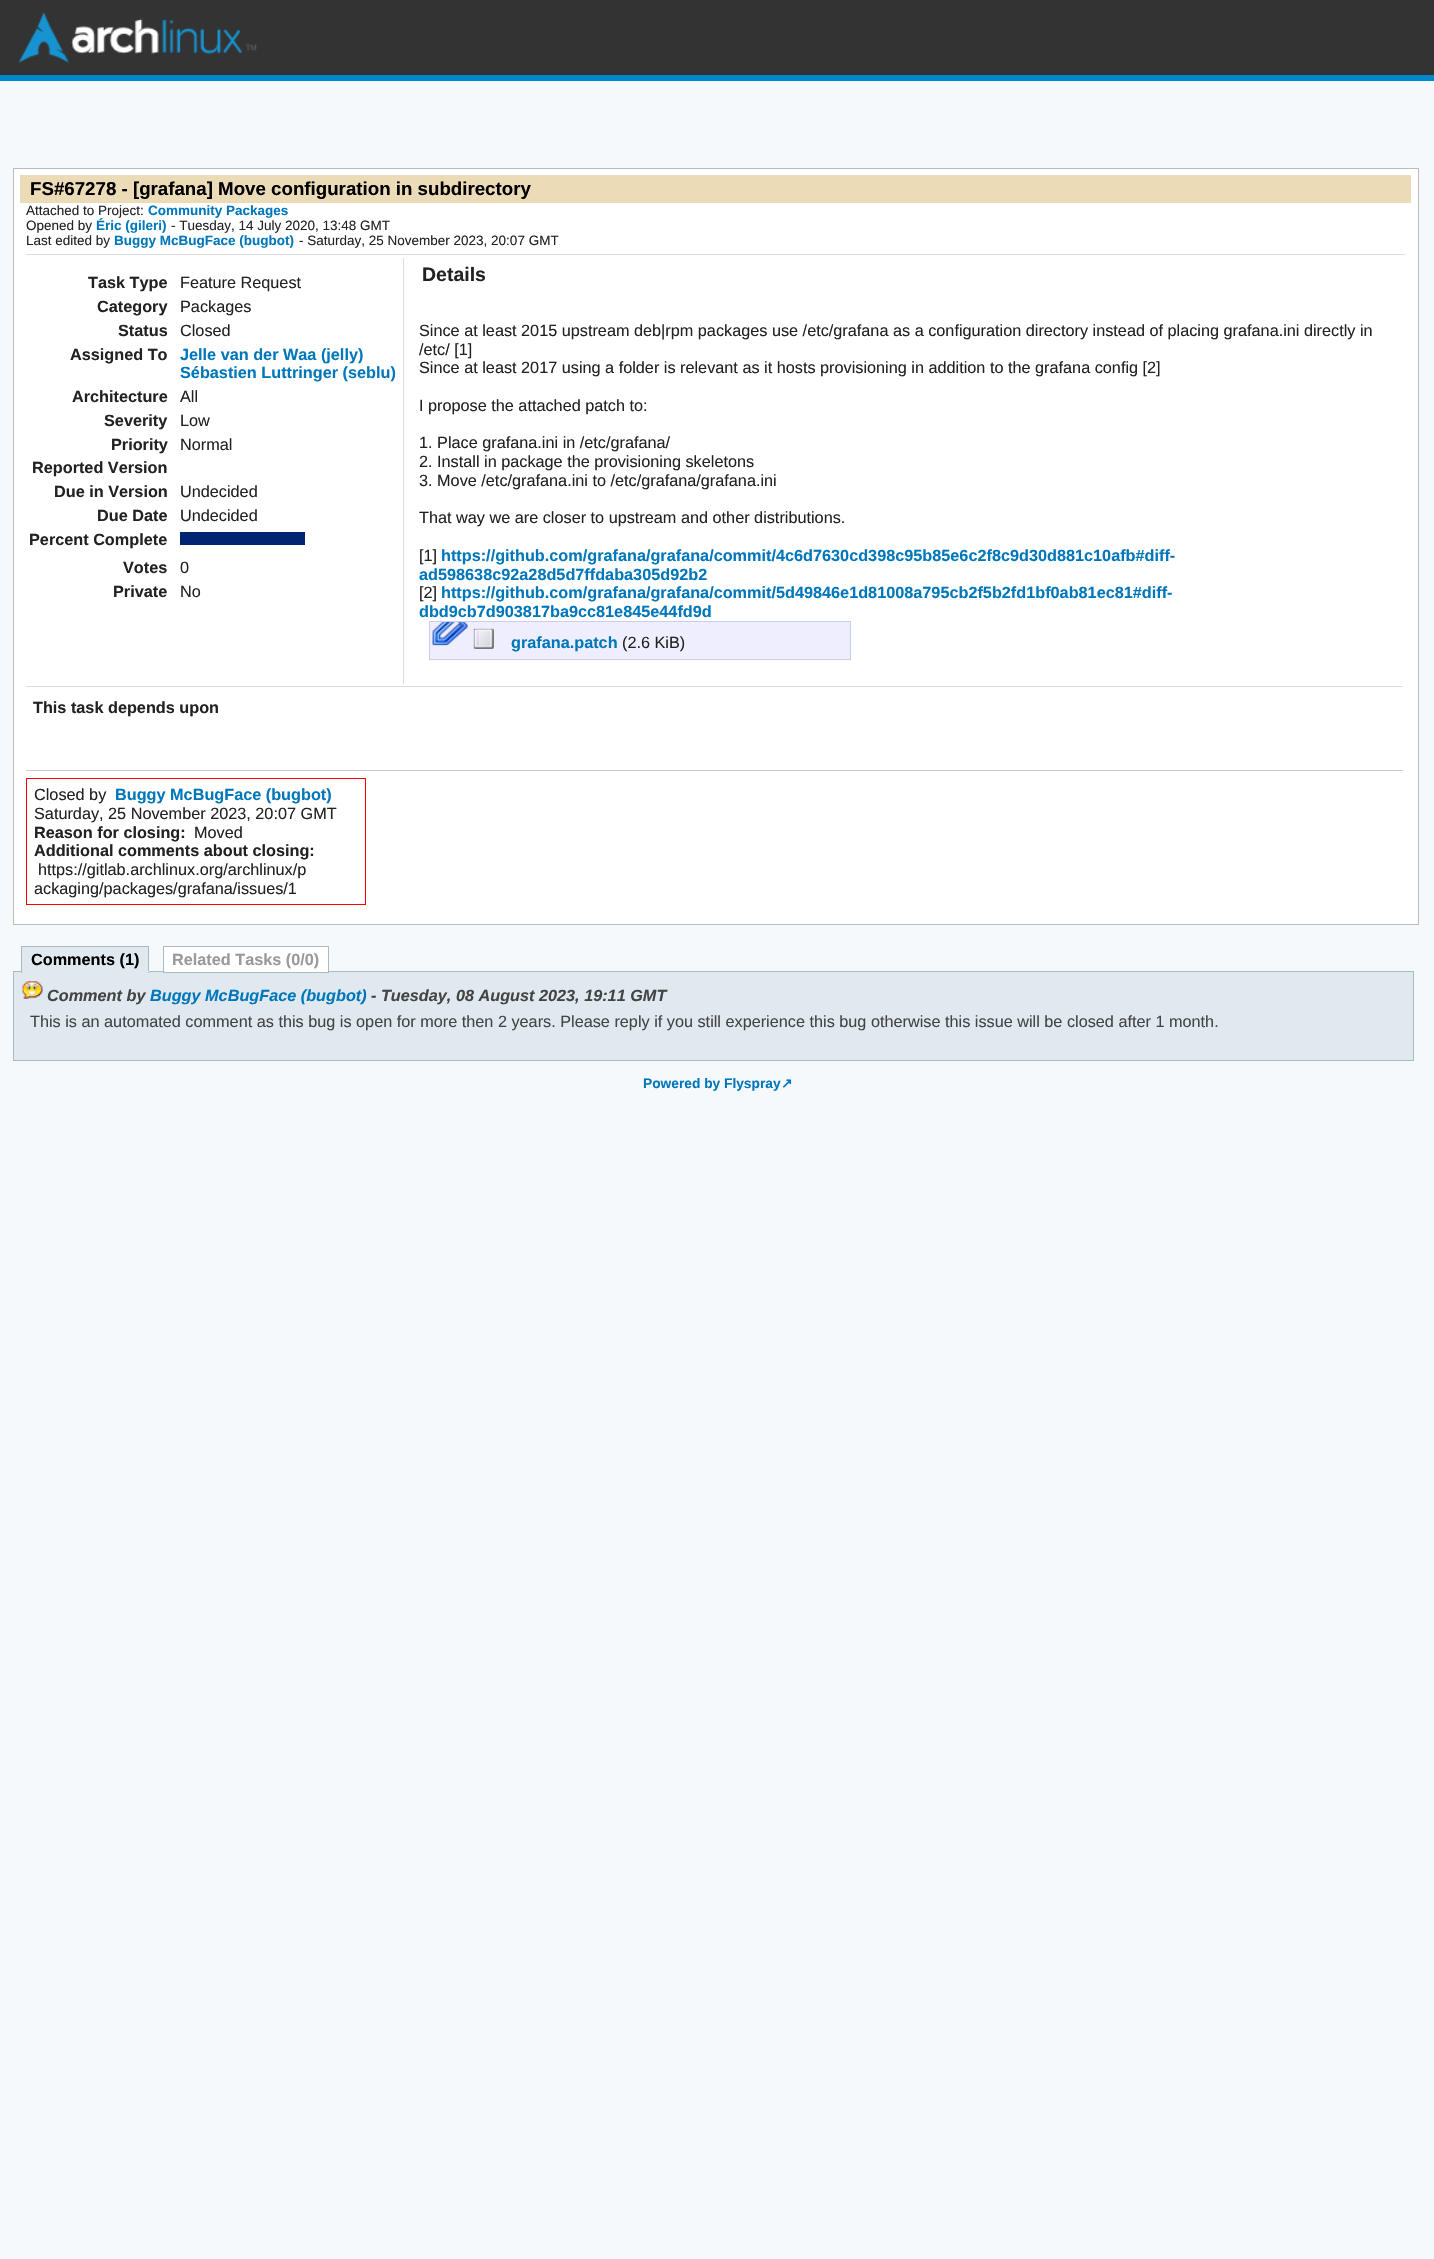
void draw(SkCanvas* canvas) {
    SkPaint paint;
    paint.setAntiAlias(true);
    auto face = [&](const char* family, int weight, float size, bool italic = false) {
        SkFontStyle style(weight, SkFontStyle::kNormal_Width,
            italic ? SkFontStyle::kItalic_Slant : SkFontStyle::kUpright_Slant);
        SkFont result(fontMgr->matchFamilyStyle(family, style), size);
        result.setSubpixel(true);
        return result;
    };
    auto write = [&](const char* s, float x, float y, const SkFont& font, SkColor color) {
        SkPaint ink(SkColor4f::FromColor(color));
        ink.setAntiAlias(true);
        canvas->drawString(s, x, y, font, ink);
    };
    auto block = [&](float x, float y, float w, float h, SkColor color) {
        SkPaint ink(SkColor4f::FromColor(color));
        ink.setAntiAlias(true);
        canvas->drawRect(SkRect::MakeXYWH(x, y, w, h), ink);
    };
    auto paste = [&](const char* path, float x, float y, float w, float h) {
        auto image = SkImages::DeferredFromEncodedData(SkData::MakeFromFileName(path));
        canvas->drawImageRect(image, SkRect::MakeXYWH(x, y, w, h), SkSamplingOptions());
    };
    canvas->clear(SkColorSetRGB(246, 249, 252));
    block(0, 0, 1434, 75, SkColorSetRGB(51, 51, 51));
    block(0, 75, 1434, 6, SkColorSetRGB(0, 136, 204));
    paste("pic1.png", 18, 12, 239, 51);
    paint.setColor(SK_ColorWHITE);
    canvas->drawRect(SkRect::MakeXYWH(13.5f, 168.5f, 1405, 756), paint);
    paint.setStyle(SkPaint::kStroke_Style);
    paint.setStrokeWidth(1);
    paint.setColor(SkColorSetRGB(187, 187, 187));
    canvas->drawRect(SkRect::MakeXYWH(13.5f, 168.5f, 1405, 756), paint);
    block(20, 175, 1391, 28, SkColorSetRGB(236, 219, 183));
    auto kFont1 = face("Liberation Sans", 700, 18.7f);
    write("FS#67278 - [grafana] Move configuration in subdirectory", 30, 195, kFont1, SK_ColorBLACK);
    block(26, 254, 1379, 1, SkColorSetRGB(221, 221, 221));
    auto kFont2 = face("Liberation Sans", 400, 13.5f);
    write("Attached to Project:", 26, 215, kFont2, SkColorSetRGB(34, 34, 34));
    auto kFont3 = face("Liberation Sans", 700, 13.5f);
    write("Community Packages", 148, 215, kFont3, SkColorSetRGB(0, 119, 187));
    write("Opened by", 26, 230, kFont2, SkColorSetRGB(34, 34, 34));
    write("Éric (gileri)", 96, 230, kFont3, SkColorSetRGB(0, 119, 187));
    write("- Tuesday, 14 July 2020, 13:48 GMT", 171, 230, kFont2, SkColorSetRGB(34, 34, 34));
    write("Last edited by", 26, 245, kFont2, SkColorSetRGB(34, 34, 34));
    write("Buggy McBugFace (bugbot)", 114, 245, kFont3, SkColorSetRGB(0, 119, 187));
    write("- Saturday, 25 November 2023, 20:07 GMT", 299, 245, kFont2, SkColorSetRGB(34, 34, 34));
    block(403, 258, 1, 426, SkColorSetRGB(221, 221, 221));
    auto kFont4 = face("Liberation Sans", 700, 16.25f);
    write("Task Type", 88, 288, kFont4, SkColorSetRGB(34, 34, 34));
    auto kFont5 = face("Liberation Sans", 400, 16.25f);
    write("Feature Request", 180, 288, kFont5, SkColorSetRGB(34, 34, 34));
    write("Category", 97, 312, kFont4, SkColorSetRGB(34, 34, 34));
    write("Packages", 180, 312, kFont5, SkColorSetRGB(34, 34, 34));
    write("Status", 118, 336, kFont4, SkColorSetRGB(34, 34, 34));
    write("Closed", 180, 336, kFont5, SkColorSetRGB(34, 34, 34));
    write("Assigned To", 70, 360, kFont4, SkColorSetRGB(34, 34, 34));
    write("Jelle van der Waa (jelly)", 180, 360, kFont4, SkColorSetRGB(0, 119, 187));
    write("Sébastien Luttringer (seblu)", 180, 378, kFont4, SkColorSetRGB(0, 119, 187));
    write("Architecture", 72, 402, kFont4, SkColorSetRGB(34, 34, 34));
    write("All", 180, 402, kFont5, SkColorSetRGB(34, 34, 34));
    write("Severity", 104, 426, kFont4, SkColorSetRGB(34, 34, 34));
    write("Low", 180, 426, kFont5, SkColorSetRGB(34, 34, 34));
    write("Priority", 111, 450, kFont4, SkColorSetRGB(34, 34, 34));
    write("Normal", 180, 450, kFont5, SkColorSetRGB(34, 34, 34));
    write("Reported Version", 32, 473, kFont4, SkColorSetRGB(34, 34, 34));
    write("Due in Version", 54, 497, kFont4, SkColorSetRGB(34, 34, 34));
    write("Undecided", 180, 497, kFont5, SkColorSetRGB(34, 34, 34));
    write("Due Date", 97, 521, kFont4, SkColorSetRGB(34, 34, 34));
    write("Undecided", 180, 521, kFont5, SkColorSetRGB(34, 34, 34));
    write("Percent Complete", 29, 545, kFont4, SkColorSetRGB(34, 34, 34));
    block(180, 532, 125, 13, SkColorSetRGB(0, 38, 114));
    write("Votes", 123, 573, kFont4, SkColorSetRGB(34, 34, 34));
    write("0", 180, 573, kFont5, SkColorSetRGB(34, 34, 34));
    write("Private", 113, 597, kFont4, SkColorSetRGB(34, 34, 34));
    write("No", 180, 597, kFont5, SkColorSetRGB(34, 34, 34));
    auto kFont6 = face("Liberation Sans", 700, 19.5f);
    write("Details", 422, 281, kFont6, SkColorSetRGB(34, 34, 34));
    write("Since at least 2015 upstream deb|rpm packages use /etc/grafana as a configuration directory instead of placing grafana.ini directly in", 419, 336, kFont5, SkColorSetRGB(34, 34, 34));
    write("/etc/ [1]", 419, 355, kFont5, SkColorSetRGB(34, 34, 34));
    write("Since at least 2017 using a folder is relevant as it hosts provisioning in addition to the grafana config [2]", 419, 373, kFont5, SkColorSetRGB(34, 34, 34));
    write("I propose the attached patch to:", 419, 411, kFont5, SkColorSetRGB(34, 34, 34));
    write("1. Place grafana.ini in /etc/grafana/", 419, 448, kFont5, SkColorSetRGB(34, 34, 34));
    write("2. Install in package the provisioning skeletons", 419, 467, kFont5, SkColorSetRGB(34, 34, 34));
    write("3. Move /etc/grafana.ini to /etc/grafana/grafana.ini", 419, 486, kFont5, SkColorSetRGB(34, 34, 34));
    write("That way we are closer to upstream and other distributions.", 419, 523, kFont5, SkColorSetRGB(34, 34, 34));
    write("[1]", 419, 561, kFont5, SkColorSetRGB(34, 34, 34));
    write("https://github.com/grafana/grafana/commit/4c6d7630cd398c95b85e6c2f8c9d30d881c10afb#diff-", 441, 561, kFont4, SkColorSetRGB(0, 119, 187));
    write("ad598638c92a28d5d7ffdaba305d92b2", 419, 580, kFont4, SkColorSetRGB(0, 119, 187));
    write("[2]", 419, 598, kFont5, SkColorSetRGB(34, 34, 34));
    write("https://github.com/grafana/grafana/commit/5d49846e1d81008a795cb2f5b2fd1bf0ab81ec81#diff-", 441, 598, kFont4, SkColorSetRGB(0, 119, 187));
    write("dbd9cb7d903817ba9cc81e845e44fd9d", 419, 617, kFont4, SkColorSetRGB(0, 119, 187));
    block(430, 622, 420, 37, SkColorSetRGB(238, 238, 255));
    paste("pic2.png", 432, 622, 36, 24);
    paint.setColor(SkColorSetRGB(204, 204, 238));
    canvas->drawRect(SkRect::MakeXYWH(429.5f, 621.5f, 421, 38), paint);
    paste("pic3.png", 473, 628, 21, 21);
    write("grafana.patch", 511, 648, kFont4, SkColorSetRGB(0, 119, 187));
    write("(2.6 KiB)", 622, 648, kFont5, SkColorSetRGB(34, 34, 34));
    block(26, 686, 1377, 1, SkColorSetRGB(221, 221, 221));
    block(26, 770, 1377, 1, SkColorSetRGB(204, 204, 204));
    write("This task depends upon", 33, 713, kFont4, SkColorSetRGB(34, 34, 34));
    paint.setColor(SkColorSetRGB(255, 0, 0));
    canvas->drawRect(SkRect::MakeXYWH(26.5f, 778.5f, 339, 126), paint);
    write("Closed by", 34, 800, kFont5, SkColorSetRGB(34, 34, 34));
    write("Buggy McBugFace (bugbot)", 115, 800, kFont4, SkColorSetRGB(0, 119, 187));
    write("Saturday, 25 November 2023, 20:07 GMT", 34, 819, kFont5, SkColorSetRGB(34, 34, 34));
    write("Reason for closing:", 34, 838, kFont4, SkColorSetRGB(34, 34, 34));
    write("Moved", 194, 838, kFont5, SkColorSetRGB(34, 34, 34));
    write("Additional comments about closing:", 34, 856, kFont4, SkColorSetRGB(34, 34, 34));
    write("https://gitlab.archlinux.org/archlinux/p", 38, 875, kFont5, SkColorSetRGB(34, 34, 34));
    write("ackaging/packages/grafana/issues/1", 34, 894, kFont5, SkColorSetRGB(34, 34, 34));
    paint.setStyle(SkPaint::kFill_Style);
    paint.setColor(SkColorSetRGB(224, 233, 240));
    canvas->drawRect(SkRect::MakeXYWH(13.5f, 971.5f, 1400, 89), paint);
    paint.setStyle(SkPaint::kStroke_Style);
    paint.setColor(SkColorSetRGB(170, 187, 187));
    canvas->drawRect(SkRect::MakeXYWH(13.5f, 971.5f, 1400, 89), paint);
    block(22, 947, 126, 25, SkColorSetRGB(224, 233, 240));
    write("Comments (1)", 31, 965, kFont4, SK_ColorBLACK);
    block(21, 946, 128, 1, SkColorSetRGB(170, 187, 187));
    block(148, 946, 1, 27, SkColorSetRGB(170, 187, 187));
    block(21, 971, 128, 1, SkColorSetRGB(224, 233, 240));
    block(21, 946, 1, 27, SkColorSetRGB(170, 187, 187));
    paint.setStyle(SkPaint::kFill_Style);
    paint.setColor(SK_ColorWHITE);
    canvas->drawRect(SkRect::MakeXYWH(163.5f, 946.5f, 165, 26), paint);
    paint.setStyle(SkPaint::kStroke_Style);
    paint.setColor(SkColorSetRGB(170, 187, 187));
    canvas->drawRect(SkRect::MakeXYWH(163.5f, 946.5f, 165, 26), paint);
    write("Related Tasks (0/0)", 172, 965, kFont4, SkColorSetRGB(153, 153, 153));
    paste("pic4.png", 22, 981, 21, 18);
    auto kFont7 = face("Liberation Sans", 700, 16.25f, true);
    write("Comment by", 47, 1001, kFont7, SkColorSetRGB(68, 68, 68));
    write("Buggy McBugFace (bugbot)", 150, 1001, kFont7, SkColorSetRGB(0, 119, 187));
    write("- Tuesday, 08 August 2023, 19:11 GMT", 371, 1001, kFont7, SkColorSetRGB(68, 68, 68));
    write("This is an automated comment as this bug is open for more then 2 years. Please reply if you still experience this bug otherwise this issue will be closed after 1 month.", 30, 1027, kFont5, SkColorSetRGB(68, 68, 68));
    auto kFont8 = face("Liberation Sans", 700, 13.75f);
    write("Powered by Flyspray", 643, 1088, kFont8, SkColorSetRGB(0, 119, 187));
    auto kFont9 = face("DejaVu Sans", 700, 13.75f);
    write("↗", 781, 1088, kFont9, SkColorSetRGB(0, 119, 187));
}
